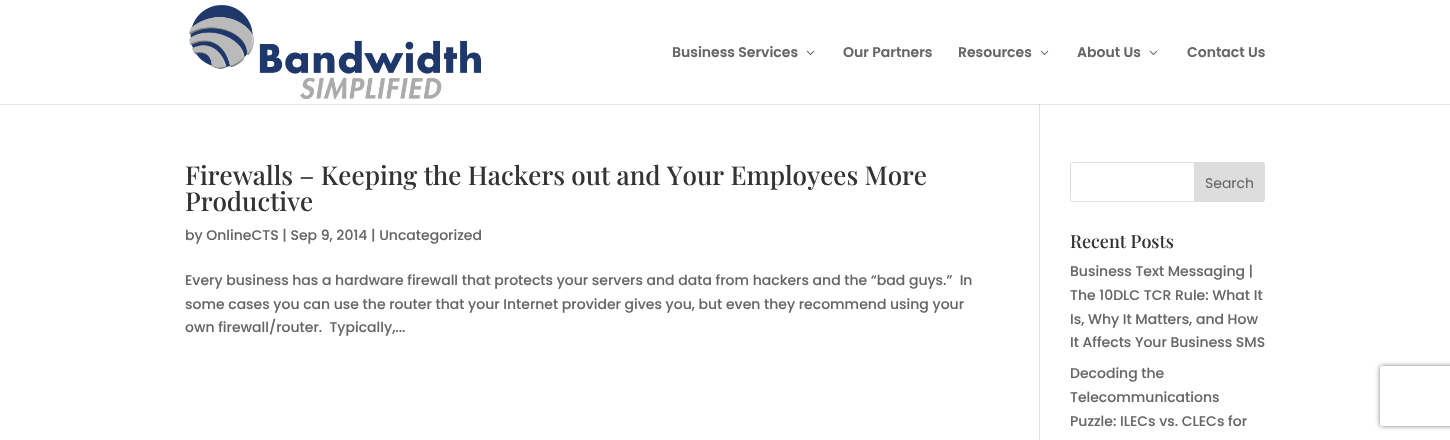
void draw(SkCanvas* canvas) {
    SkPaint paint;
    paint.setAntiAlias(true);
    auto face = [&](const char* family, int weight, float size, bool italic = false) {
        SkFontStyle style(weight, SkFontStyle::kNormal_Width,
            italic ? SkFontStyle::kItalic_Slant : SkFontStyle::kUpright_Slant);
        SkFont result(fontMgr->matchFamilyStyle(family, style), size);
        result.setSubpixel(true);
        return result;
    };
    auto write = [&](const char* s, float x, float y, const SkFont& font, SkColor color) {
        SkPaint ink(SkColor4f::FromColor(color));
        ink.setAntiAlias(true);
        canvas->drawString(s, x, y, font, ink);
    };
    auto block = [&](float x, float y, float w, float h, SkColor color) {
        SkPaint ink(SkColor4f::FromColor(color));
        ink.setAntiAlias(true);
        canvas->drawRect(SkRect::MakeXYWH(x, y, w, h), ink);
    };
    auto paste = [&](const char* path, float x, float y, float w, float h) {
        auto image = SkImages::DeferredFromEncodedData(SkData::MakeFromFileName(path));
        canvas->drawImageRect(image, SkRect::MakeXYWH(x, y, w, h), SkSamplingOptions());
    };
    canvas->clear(SK_ColorWHITE);
    block(0, 104, 1450, 1, SkColorSetRGB(230, 230, 230));
    paste("pic1.png", 189, 5, 292, 94);
    auto kFont1 = face("Poppins", 600, 14);
    write("Business Services", 672, 57, kFont1, SkColorSetRGB(102, 102, 102));
    paste("pic2.png", 806, 50, 9, 5);
    write("Our Partners", 843, 57, kFont1, SkColorSetRGB(102, 102, 102));
    write("Resources", 958, 57, kFont1, SkColorSetRGB(102, 102, 102));
    paste("pic2.png", 1040, 50, 9, 5);
    write("About Us", 1077, 57, kFont1, SkColorSetRGB(102, 102, 102));
    paste("pic2.png", 1149, 50, 9, 5);
    write("Contact Us", 1187, 57, kFont1, SkColorSetRGB(102, 102, 102));
    block(1039, 104, 1, 336, SkColorSetRGB(226, 226, 226));
    block(1039, 104, 1, 1, SkColorSetRGB(203, 203, 203));
    auto kFont2 = face("Playfair Display", 500, 26);
    write("Firewalls – Keeping the Hackers out and Your Employees More", 185, 185, kFont2, SkColorSetRGB(51, 51, 51));
    write("Productive", 185, 211, kFont2, SkColorSetRGB(51, 51, 51));
    auto kFont3 = face("Poppins", 500, 14);
    write("by OnlineCTS | Sep 9, 2014 | Uncategorized", 185, 240, kFont3, SkColorSetRGB(102, 102, 102));
    write("Every business has a hardware firewall that protects your servers and data from hackers and the “bad guys.”  In", 185, 285, kFont3, SkColorSetRGB(102, 102, 102));
    write("some cases you can use the router that your Internet provider gives you, but even they recommend using your", 185, 309, kFont3, SkColorSetRGB(102, 102, 102));
    write("own firewall/router.  Typically,...", 185, 332, kFont3, SkColorSetRGB(102, 102, 102));
    paint.setStyle(SkPaint::kStroke_Style);
    paint.setStrokeWidth(1);
    paint.setColor(SkColorSetRGB(221, 221, 221));
    canvas->drawRoundRect(SkRect::MakeXYWH(1070.5f, 162.5f, 194, 39), 2.5f, 2.5f, paint);
    paint.setStyle(SkPaint::kFill_Style);
    canvas->drawPath(SkPathBuilder().moveTo(1194.5f, 162.5f).lineTo(1262, 162.5f).cubicTo(1263.5f, 162.5f, 1264.5f, 163.5f, 1264.5f, 165).lineTo(1264.5f, 199).cubicTo(1264.5f, 200.5f, 1263.5f, 201.5f, 1262, 201.5f).lineTo(1194.5f, 201.5f).close().detach(), paint);
    paint.setStyle(SkPaint::kStroke_Style);
    canvas->drawPath(SkPathBuilder().moveTo(1194.5f, 162.5f).lineTo(1262, 162.5f).cubicTo(1263.5f, 162.5f, 1264.5f, 163.5f, 1264.5f, 165).lineTo(1264.5f, 199).cubicTo(1264.5f, 200.5f, 1263.5f, 201.5f, 1262, 201.5f).lineTo(1194.5f, 201.5f).close().detach(), paint);
    auto kFont4 = face("Poppins", 400, 14);
    write("Search", 1205, 188, kFont4, SkColorSetRGB(102, 102, 102));
    auto kFont5 = face("Playfair Display", 500, 18);
    write("Recent Posts", 1070, 248, kFont5, SkColorSetRGB(51, 51, 51));
    write("Business Text Messaging |", 1070, 276, kFont3, SkColorSetRGB(102, 102, 102));
    write("The 10DLC TCR Rule: What It", 1070, 300, kFont3, SkColorSetRGB(102, 102, 102));
    write("Is, Why It Matters, and How", 1070, 324, kFont3, SkColorSetRGB(102, 102, 102));
    write("It Affects Your Business SMS", 1070, 347, kFont3, SkColorSetRGB(102, 102, 102));
    write("Decoding the", 1070, 378, kFont3, SkColorSetRGB(102, 102, 102));
    write("Telecommunications", 1070, 402, kFont3, SkColorSetRGB(102, 102, 102));
    write("Puzzle: ILECs vs. CLECs for", 1070, 426, kFont3, SkColorSetRGB(102, 102, 102));
    canvas->save();
    canvas->clipPath(SkPathBuilder(SkPathFillType::kEvenOdd).moveTo(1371, 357).lineTo(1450, 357).lineTo(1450, 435).lineTo(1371, 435).close().moveTo(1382, 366).lineTo(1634, 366).cubicTo(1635, 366, 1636, 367, 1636, 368).lineTo(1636, 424).cubicTo(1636, 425, 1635, 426, 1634, 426).lineTo(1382, 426).cubicTo(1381, 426, 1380, 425, 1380, 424).lineTo(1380, 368).cubicTo(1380, 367, 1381, 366, 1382, 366).close().detach(), true);
    paint.setStyle(SkPaint::kFill_Style);
    paint.setColor(SkColorSetRGB(128, 128, 128));
    paint.setMaskFilter(SkMaskFilter::MakeBlur(kNormal_SkBlurStyle, 2.5f));
    canvas->drawRoundRect(SkRect::MakeXYWH(1380, 366, 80, 60), 2, 2, paint);
    paint.setMaskFilter(nullptr);
    canvas->restore();
}
